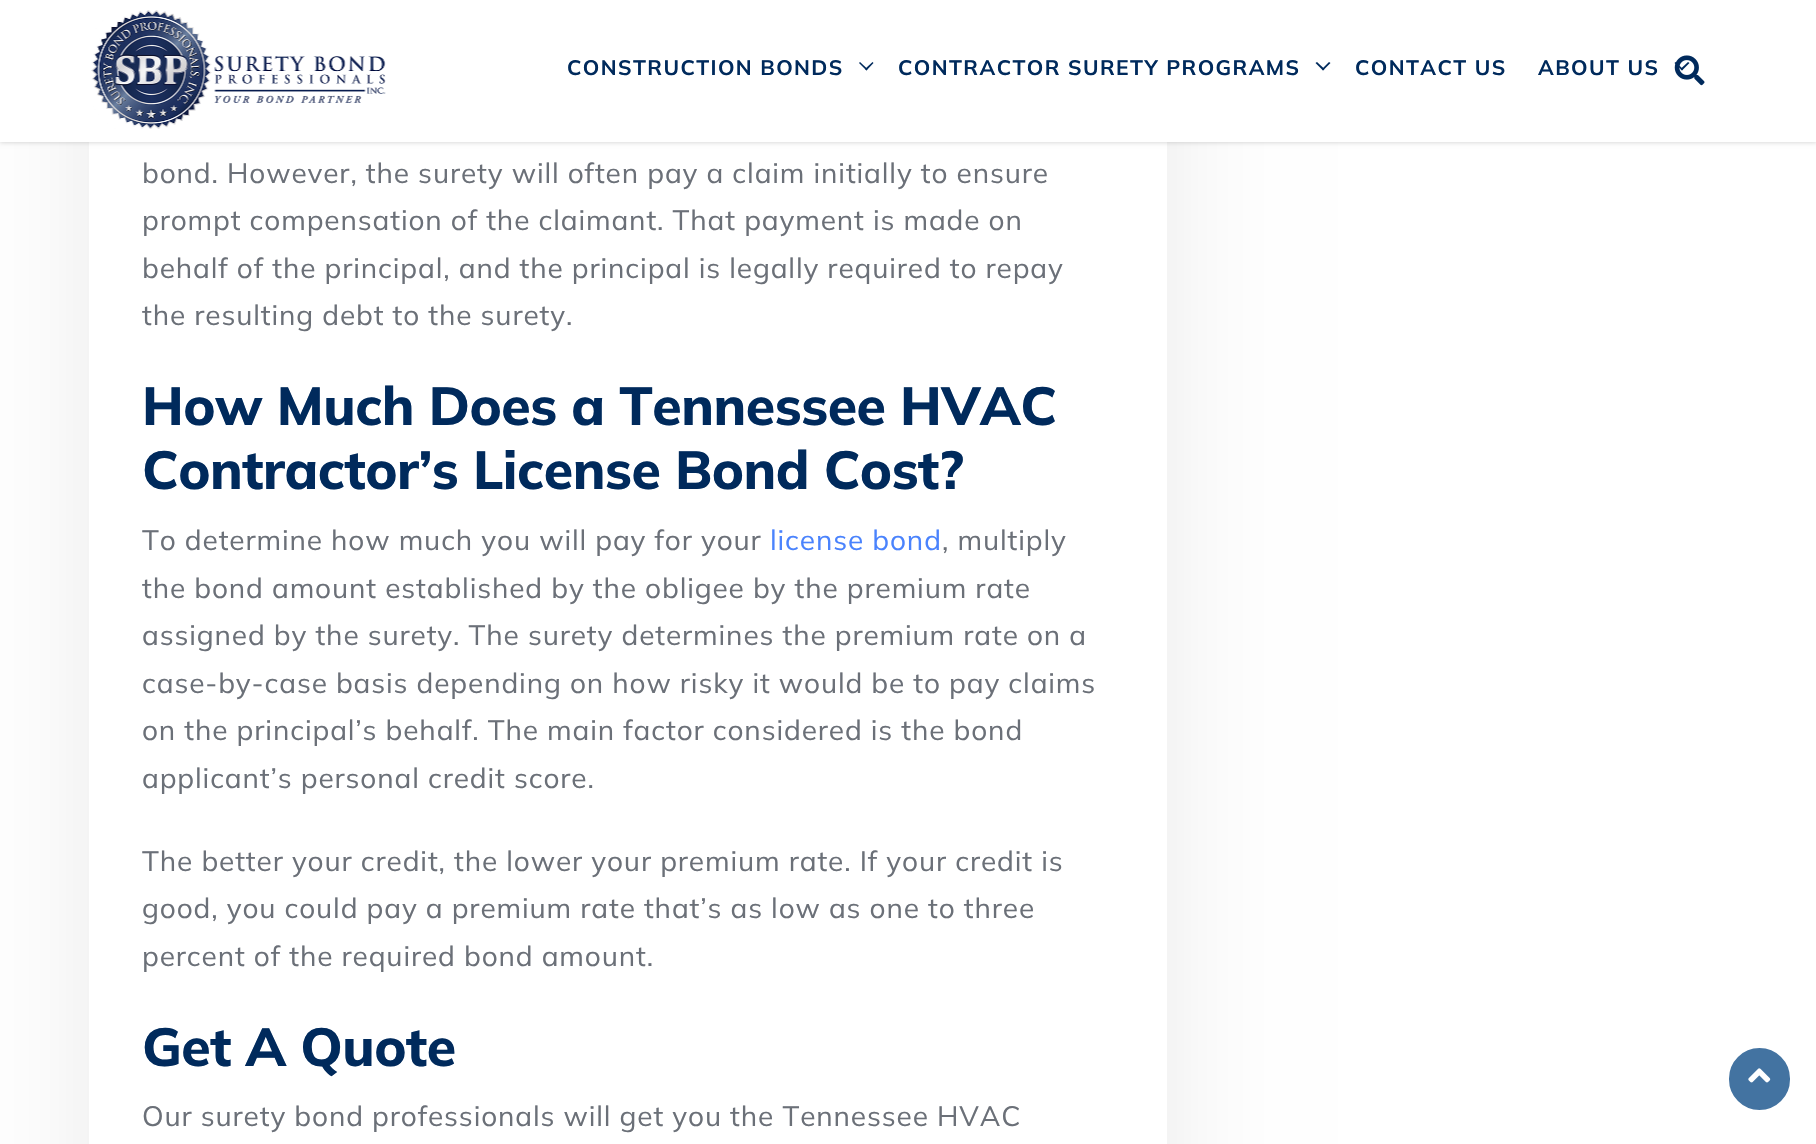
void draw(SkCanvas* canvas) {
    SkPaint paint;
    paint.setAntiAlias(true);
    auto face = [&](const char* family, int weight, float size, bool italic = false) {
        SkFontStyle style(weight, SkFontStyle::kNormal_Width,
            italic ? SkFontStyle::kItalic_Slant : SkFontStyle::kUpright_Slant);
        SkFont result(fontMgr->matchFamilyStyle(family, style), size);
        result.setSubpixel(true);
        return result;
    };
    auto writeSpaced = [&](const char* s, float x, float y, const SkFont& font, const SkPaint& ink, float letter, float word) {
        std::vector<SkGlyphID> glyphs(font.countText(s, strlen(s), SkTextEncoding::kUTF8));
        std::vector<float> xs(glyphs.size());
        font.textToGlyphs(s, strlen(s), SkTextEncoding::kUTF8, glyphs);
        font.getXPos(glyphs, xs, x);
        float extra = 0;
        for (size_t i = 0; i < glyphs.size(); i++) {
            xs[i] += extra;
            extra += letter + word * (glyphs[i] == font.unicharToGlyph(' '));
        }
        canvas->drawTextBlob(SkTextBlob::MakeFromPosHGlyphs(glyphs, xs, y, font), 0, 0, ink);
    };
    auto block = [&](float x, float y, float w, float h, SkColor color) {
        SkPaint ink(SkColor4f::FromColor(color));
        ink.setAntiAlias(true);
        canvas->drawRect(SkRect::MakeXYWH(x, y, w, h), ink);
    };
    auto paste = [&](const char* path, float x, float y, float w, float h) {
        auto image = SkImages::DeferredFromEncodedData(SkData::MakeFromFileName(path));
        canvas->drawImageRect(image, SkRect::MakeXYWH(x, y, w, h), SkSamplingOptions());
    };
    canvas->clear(SK_ColorWHITE);
    paint.setColor(SkColorSetARGB(26, 0, 0, 0));
    paint.setMaskFilter(SkMaskFilter::MakeBlur(kNormal_SkBlurStyle, 63));
    canvas->drawRect(SkRect::MakeXYWH(107, -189, 1043, 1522), paint);
    paint.setMaskFilter(nullptr);
    block(89, 142, 1078, 1002, SK_ColorWHITE);
    paint.setColor(SkColorSetARGB(51, 0, 0, 0));
    paint.setMaskFilter(SkMaskFilter::MakeBlur(kNormal_SkBlurStyle, 2.5f));
    canvas->drawRect(SkRect::MakeXYWH(0, 0, 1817, 142), paint);
    paint.setMaskFilter(nullptr);
    block(0, 0, 1816, 142, SK_ColorWHITE);
    paste("pic1.png", 91, 10, 295, 119);
    auto kFont1 = face("Mulish", 700, 21);
    paint.setColor(SkColorSetRGB(0, 42, 92));
    writeSpaced("CONSTRUCTION BONDS", 567, 75, kFont1, paint, 1.4f, 0);
    canvas->drawPath(SkPathBuilder().moveTo(872.5f, 62).lineTo(873.5f, 63).lineTo(866.5f, 70.5f).lineTo(865, 69).close().detach(), paint);
    canvas->drawPath(SkPathBuilder().moveTo(860, 62).lineTo(867.5f, 69).lineTo(866.5f, 70.5f).lineTo(859, 63).close().detach(), paint);
    writeSpaced("CONTRACTOR SURETY PROGRAMS", 898, 75, kFont1, paint, 1.4f, 0);
    canvas->drawPath(SkPathBuilder().moveTo(1329, 62).lineTo(1330.5f, 63).lineTo(1323, 70.5f).lineTo(1322, 69).close().detach(), paint);
    canvas->drawPath(SkPathBuilder().moveTo(1317, 62).lineTo(1324.5f, 69).lineTo(1323, 70.5f).lineTo(1315.5f, 63).close().detach(), paint);
    writeSpaced("CONTACT US", 1355, 75, kFont1, paint, 1.4f, 0);
    writeSpaced("ABOUT US", 1538, 75, kFont1, paint, 1.4f, 0);
    canvas->drawPath(SkPathBuilder().moveTo(1688, 62).lineTo(1689.5f, 63).lineTo(1682, 70.5f).lineTo(1680.5f, 69).close().detach(), paint);
    canvas->drawPath(SkPathBuilder().moveTo(1675.5f, 62).lineTo(1683, 69).lineTo(1682, 70.5f).lineTo(1674.5f, 63).close().detach(), paint);
    paste("pic2.png", 1674, 55, 31, 31);
    auto kFont2 = face("Mulish", 400, 28);
    paint.setColor(SkColorSetRGB(107, 112, 120));
    writeSpaced("bond. However, the surety will often pay a claim initially to ensure", 142, 183, kFont2, paint, 0.88f, 0);
    writeSpaced("prompt compensation of the claimant. That payment is made on", 142, 230, kFont2, paint, 0.88f, 0);
    writeSpaced("behalf of the principal, and the principal is legally required to repay", 142, 278, kFont2, paint, 0.88f, 0);
    writeSpaced("the resulting debt to the surety.", 142, 325, kFont2, paint, 0.88f, 0);
    auto kFont3 = face("Mulish", 800, 53.5f);
    paint.setColor(SkColorSetRGB(0, 42, 92));
    writeSpaced("How Much Does a Tennessee HVAC", 142, 425, kFont3, paint, -0.5f, 0);
    writeSpaced("Contractor’s License Bond Cost?", 142, 489, kFont3, paint, -0.5f, 0);
    paint.setColor(SkColorSetRGB(107, 112, 120));
    writeSpaced("To determine how much you will pay for your", 142, 550, kFont2, paint, 0.88f, 0);
    paint.setColor(SkColorSetRGB(74, 131, 253));
    writeSpaced("license bond", 770, 550, kFont2, paint, 0.88f, 0);
    paint.setColor(SkColorSetRGB(107, 112, 120));
    writeSpaced(", multiply", 942, 550, kFont2, paint, 0.88f, 0);
    writeSpaced("the bond amount established by the obligee by the premium rate", 142, 598, kFont2, paint, 0.88f, 0);
    writeSpaced("assigned by the surety. The surety determines the premium rate on a", 142, 645, kFont2, paint, 0.88f, 0);
    writeSpaced("case-by-case basis depending on how risky it would be to pay claims", 142, 693, kFont2, paint, 0.88f, 0);
    writeSpaced("on the principal’s behalf. The main factor considered is the bond", 142, 740, kFont2, paint, 0.88f, 0);
    writeSpaced("applicant’s personal credit score.", 142, 788, kFont2, paint, 0.88f, 0);
    writeSpaced("The better your credit, the lower your premium rate. If your credit is", 142, 871, kFont2, paint, 0.88f, 0);
    writeSpaced("good, you could pay a premium rate that’s as low as one to three", 142, 918, kFont2, paint, 0.88f, 0);
    writeSpaced("percent of the required bond amount.", 142, 966, kFont2, paint, 0.88f, 0);
    paint.setColor(SkColorSetRGB(0, 42, 92));
    writeSpaced("Get A Quote", 142, 1066, kFont3, paint, -0.5f, 0);
    paint.setColor(SkColorSetRGB(107, 112, 120));
    writeSpaced("Our surety bond professionals will get you the Tennessee HVAC", 142, 1126, kFont2, paint, 0.88f, 0);
    paint.setColor(SkColorSetRGB(67, 115, 161));
    canvas->drawRoundRect(SkRect::MakeXYWH(1730, 1049, 59, 60), 29.5f, 29.5f, paint);
    paint.setStyle(SkPaint::kStroke_Style);
    paint.setStrokeWidth(2);
    canvas->drawRoundRect(SkRect::MakeXYWH(1730, 1049, 59, 60), 29.5f, 29.5f, paint);
    paste("pic3.png", 1748, 1068, 23, 15);
}
